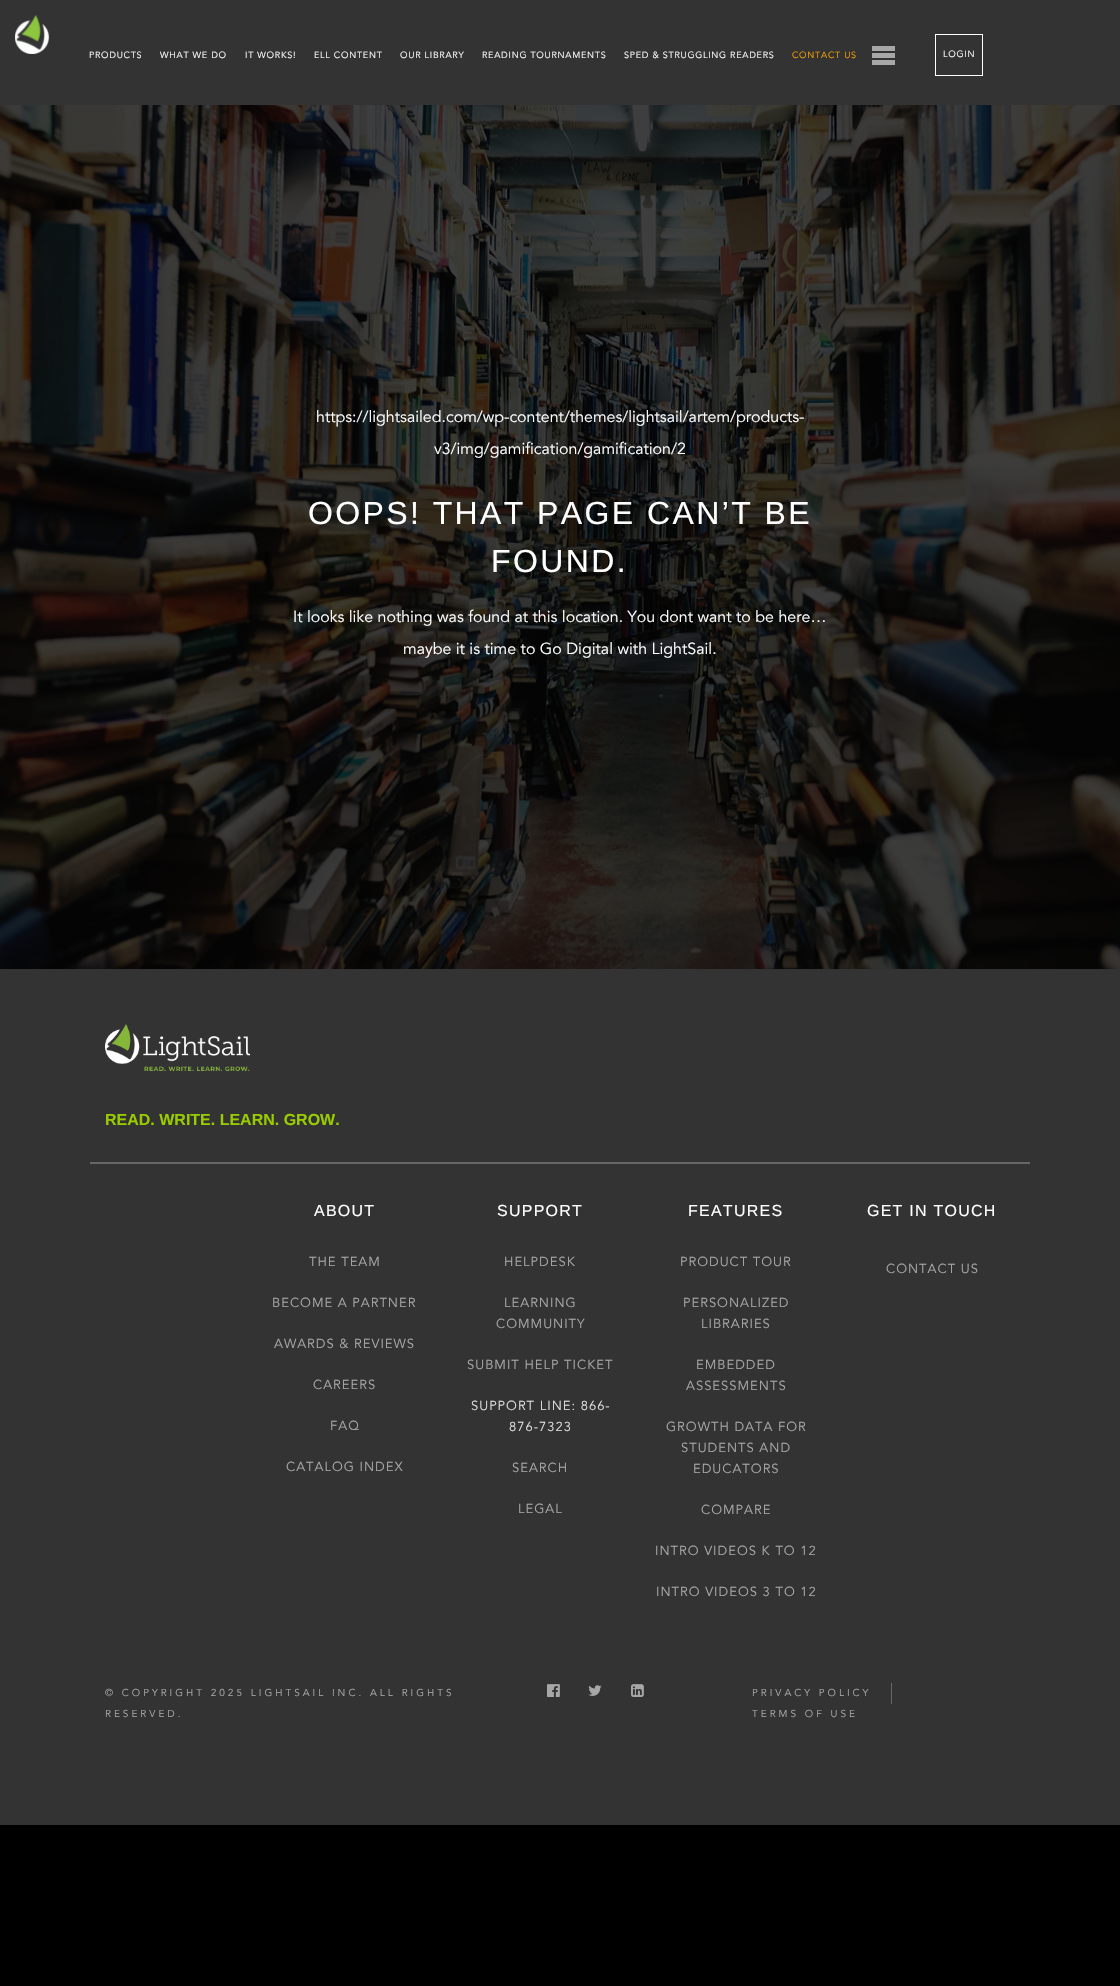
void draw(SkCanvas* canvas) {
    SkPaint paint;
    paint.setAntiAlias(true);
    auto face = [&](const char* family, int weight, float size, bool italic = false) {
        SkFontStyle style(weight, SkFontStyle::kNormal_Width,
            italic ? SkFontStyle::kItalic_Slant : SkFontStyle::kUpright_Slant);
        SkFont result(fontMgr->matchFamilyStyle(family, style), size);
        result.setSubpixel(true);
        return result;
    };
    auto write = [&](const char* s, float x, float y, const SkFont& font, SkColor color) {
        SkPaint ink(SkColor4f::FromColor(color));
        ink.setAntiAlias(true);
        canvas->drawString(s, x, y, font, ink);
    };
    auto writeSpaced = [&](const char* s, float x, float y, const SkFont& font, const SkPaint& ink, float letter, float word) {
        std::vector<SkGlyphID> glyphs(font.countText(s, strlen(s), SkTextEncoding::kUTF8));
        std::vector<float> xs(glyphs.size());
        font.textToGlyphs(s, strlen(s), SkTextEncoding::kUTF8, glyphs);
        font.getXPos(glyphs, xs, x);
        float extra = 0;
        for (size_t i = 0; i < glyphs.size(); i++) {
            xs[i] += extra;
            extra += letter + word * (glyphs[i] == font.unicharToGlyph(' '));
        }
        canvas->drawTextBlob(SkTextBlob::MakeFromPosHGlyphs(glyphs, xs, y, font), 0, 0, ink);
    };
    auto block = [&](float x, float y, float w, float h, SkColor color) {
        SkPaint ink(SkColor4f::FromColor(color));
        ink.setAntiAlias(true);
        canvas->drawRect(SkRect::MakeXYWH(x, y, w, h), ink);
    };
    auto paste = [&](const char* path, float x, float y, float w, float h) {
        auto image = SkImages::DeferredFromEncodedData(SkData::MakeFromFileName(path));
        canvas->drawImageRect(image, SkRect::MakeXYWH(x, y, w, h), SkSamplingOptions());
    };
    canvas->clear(SK_ColorBLACK);
    block(0, 0, 1120, 105, SkColorSetRGB(51, 51, 51));
    paste("pic1.png", 15, 15, 35, 39);
    auto kFont1 = face("Avenir Next", 400, 9);
    paint.setColor(SK_ColorWHITE);
    writeSpaced("PRODUCTS", 89, 58, kFont1, paint, 0.75f, 0);
    writeSpaced("WHAT WE DO", 160, 58, kFont1, paint, 0.75f, 0);
    writeSpaced("IT WORKS!", 245, 58, kFont1, paint, 0.75f, 0);
    writeSpaced("ELL CONTENT", 314, 58, kFont1, paint, 0.75f, 0);
    writeSpaced("OUR LIBRARY", 400, 58, kFont1, paint, 0.75f, 0);
    writeSpaced("READING TOURNAMENTS", 482, 58, kFont1, paint, 0.75f, 0);
    writeSpaced("SPED & STRUGGLING READERS", 624, 58, kFont1, paint, 0.75f, 0);
    paint.setColor(SkColorSetRGB(255, 165, 0));
    writeSpaced("CONTACT US", 792, 58, kFont1, paint, 0.75f, 0);
    block(872, 46, 23, 5, SkColorSetRGB(167, 167, 167));
    block(872, 53, 23, 5, SkColorSetRGB(167, 167, 167));
    block(872, 60, 23, 5, SkColorSetRGB(167, 167, 167));
    paint.setStyle(SkPaint::kStroke_Style);
    paint.setStrokeWidth(1);
    paint.setColor(SK_ColorWHITE);
    canvas->drawRect(SkRect::MakeXYWH(935.5f, 34.5f, 47, 41), paint);
    paint.setStyle(SkPaint::kFill_Style);
    writeSpaced("LOGIN", 943, 57, kFont1, paint, 0.75f, 0);
    paste("pic2.png", 0, 105, 1120, 864);
    auto kFont2 = face("Avenir Next", 400, 16);
    write("https://lightsailed.com/wp-content/themes/lightsail/artem/products-", 316, 422, kFont2, SK_ColorWHITE);
    write("v3/img/gamification/gamification/2", 434, 454, kFont2, SK_ColorWHITE);
    auto kFont3 = face("Liberation Sans", 400, 32);
    writeSpaced("OOPS! THAT PAGE CAN’T BE", 308, 524, kFont3, paint, 2.4f, 0);
    writeSpaced("FOUND.", 491, 572, kFont3, paint, 2.4f, 0);
    write("It looks like nothing was found at this location. You dont want to be here…", 293, 622, kFont2, SK_ColorWHITE);
    write("maybe it is time to Go Digital with LightSail.", 403, 654, kFont2, SK_ColorWHITE);
    block(0, 969, 1120, 856, SkColorSetRGB(51, 51, 51));
    block(90, 1162, 940, 2, SkColorSetRGB(102, 102, 102));
    paste("pic3.png", 105, 1024, 145, 48);
    auto kFont4 = face("Liberation Sans", 700, 16);
    write("READ. WRITE. LEARN. GROW.", 105, 1125, kFont4, SkColorSetRGB(153, 204, 0));
    auto kFont5 = face("Liberation Sans", 400, 16);
    writeSpaced("ABOUT", 314, 1216, kFont5, paint, 1.25f, 0);
    auto kFont6 = face("Avenir Next", 400, 13);
    paint.setColor(SkColorSetRGB(167, 167, 167));
    writeSpaced("THE TEAM", 309, 1266, kFont6, paint, 1, 0);
    writeSpaced("BECOME A PARTNER", 272, 1307, kFont6, paint, 1, 0);
    writeSpaced("AWARDS & REVIEWS", 274, 1348, kFont6, paint, 1, 0);
    writeSpaced("CAREERS", 313, 1389, kFont6, paint, 1, 0);
    writeSpaced("FAQ", 330, 1430, kFont6, paint, 1, 0);
    writeSpaced("CATALOG INDEX", 286, 1471, kFont6, paint, 1, 0);
    paint.setColor(SK_ColorWHITE);
    writeSpaced("SUPPORT", 497, 1216, kFont5, paint, 1.25f, 0);
    paint.setColor(SkColorSetRGB(167, 167, 167));
    writeSpaced("HELPDESK", 504, 1266, kFont6, paint, 1, 0);
    writeSpaced("LEARNING", 504, 1307, kFont6, paint, 1, 0);
    writeSpaced("COMMUNITY", 496, 1328, kFont6, paint, 1, 0);
    writeSpaced("SUBMIT HELP TICKET", 467, 1369, kFont6, paint, 1, 0);
    paint.setColor(SkColorSetRGB(221, 221, 221));
    writeSpaced("SUPPORT LINE: 866-", 471, 1410, kFont6, paint, 1, 0);
    writeSpaced("876-7323", 509, 1431, kFont6, paint, 1, 0);
    paint.setColor(SkColorSetRGB(167, 167, 167));
    writeSpaced("SEARCH", 512, 1472, kFont6, paint, 1, 0);
    writeSpaced("LEGAL", 518, 1513, kFont6, paint, 1, 0);
    paint.setColor(SK_ColorWHITE);
    writeSpaced("FEATURES", 688, 1216, kFont5, paint, 1.25f, 0);
    paint.setColor(SkColorSetRGB(167, 167, 167));
    writeSpaced("PRODUCT TOUR", 680, 1266, kFont6, paint, 1, 0);
    writeSpaced("PERSONALIZED", 683, 1307, kFont6, paint, 1, 0);
    writeSpaced("LIBRARIES", 701, 1328, kFont6, paint, 1, 0);
    writeSpaced("EMBEDDED", 696, 1369, kFont6, paint, 1, 0);
    writeSpaced("ASSESSMENTS", 686, 1390, kFont6, paint, 1, 0);
    writeSpaced("GROWTH DATA FOR", 666, 1431, kFont6, paint, 1, 0);
    writeSpaced("STUDENTS AND", 681, 1452, kFont6, paint, 1, 0);
    writeSpaced("EDUCATORS", 693, 1473, kFont6, paint, 1, 0);
    writeSpaced("COMPARE", 701, 1514, kFont6, paint, 1, 0);
    writeSpaced("INTRO VIDEOS K TO 12", 655, 1555, kFont6, paint, 1, 0);
    writeSpaced("INTRO VIDEOS 3 TO 12", 656, 1596, kFont6, paint, 1, 0);
    paint.setColor(SK_ColorWHITE);
    writeSpaced("GET IN TOUCH", 867, 1216, kFont5, paint, 1.25f, 0);
    paint.setColor(SkColorSetRGB(167, 167, 167));
    writeSpaced("CONTACT US", 886, 1273, kFont6, paint, 1, 0);
    auto kFont7 = face("Avenir Next", 400, 10);
    writeSpaced("© COPYRIGHT 2025 LIGHTSAIL INC. ALL RIGHTS", 105, 1696, kFont7, paint, 3, 0);
    writeSpaced("RESERVED.", 105, 1717, kFont7, paint, 3, 0);
    paste("pic4.png", 547, 1684, 13, 13);
    paste("pic5.png", 588, 1685, 14, 11);
    paste("pic6.png", 631, 1684, 13, 13);
    block(891, 1683, 1, 21, SkColorSetRGB(102, 102, 102));
    writeSpaced("PRIVACY POLICY", 752, 1696, kFont7, paint, 3, 0);
    writeSpaced("TERMS OF USE", 752, 1717, kFont7, paint, 3, 0);
}
